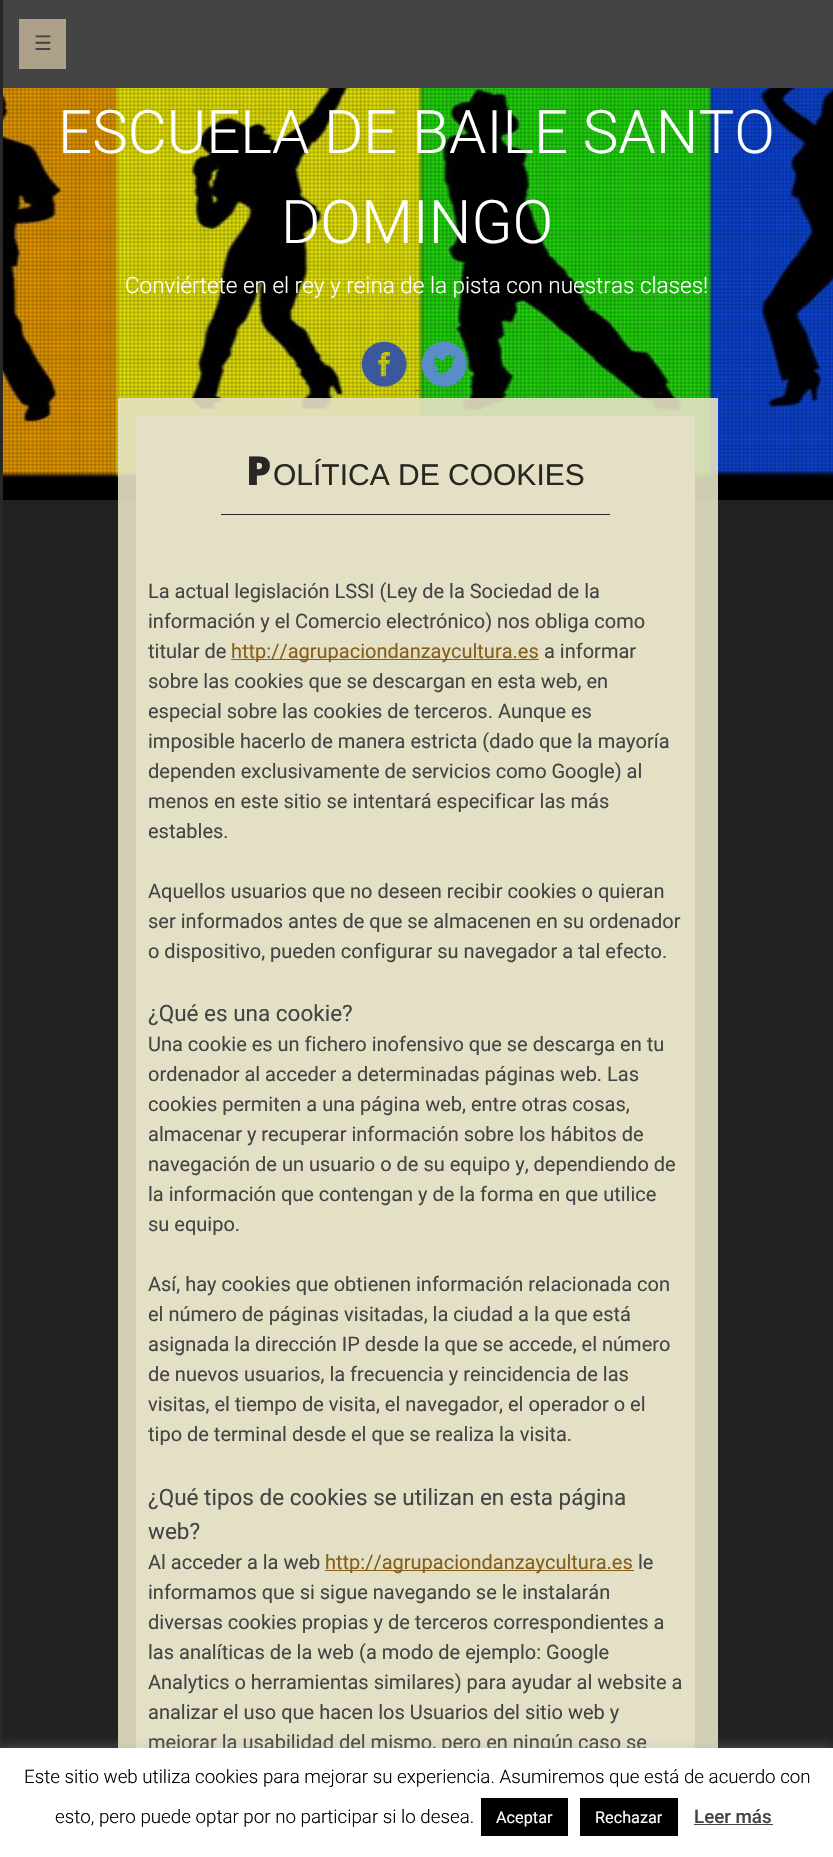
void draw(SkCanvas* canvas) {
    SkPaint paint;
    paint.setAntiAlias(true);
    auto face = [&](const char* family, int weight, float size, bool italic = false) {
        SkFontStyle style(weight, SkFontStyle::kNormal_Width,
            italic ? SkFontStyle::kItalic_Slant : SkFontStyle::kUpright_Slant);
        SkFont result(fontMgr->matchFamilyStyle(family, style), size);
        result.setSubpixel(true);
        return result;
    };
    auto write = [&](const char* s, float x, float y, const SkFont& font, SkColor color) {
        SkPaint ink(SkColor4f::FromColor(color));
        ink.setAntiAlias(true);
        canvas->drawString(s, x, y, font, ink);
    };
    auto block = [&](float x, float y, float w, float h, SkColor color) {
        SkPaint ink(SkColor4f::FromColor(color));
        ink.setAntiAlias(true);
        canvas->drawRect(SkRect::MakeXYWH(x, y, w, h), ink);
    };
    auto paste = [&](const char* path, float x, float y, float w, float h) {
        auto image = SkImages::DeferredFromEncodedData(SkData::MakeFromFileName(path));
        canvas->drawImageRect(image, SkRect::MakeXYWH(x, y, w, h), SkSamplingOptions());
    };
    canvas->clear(SkColorSetRGB(33, 33, 33));
    block(3, 0, 830, 88, SkColorSetRGB(68, 68, 68));
    block(0, 0, 3, 1748, SkColorSetRGB(42, 38, 34));
    block(19, 19, 47, 50, SkColorSetRGB(174, 161, 137));
    auto kFont1 = face("DejaVu Sans", 400, 20);
    write("☰", 34, 50, kFont1, SkColorSetRGB(68, 68, 68));
    paste("pic3.png", 3, 88, 830, 412);
    paste("pic4.png", 3, 88, 830, 390);
    auto kFont2 = face("Roboto", 300, 60);
    write("ESCUELA DE BAILE SANTO", 58, 153, kFont2, SK_ColorWHITE);
    write("DOMINGO", 281, 243, kFont2, SK_ColorWHITE);
    auto kFont3 = face("Roboto", 300, 22.5f);
    write("Conviértete en el rey y reina de la pista con nuestras clases!", 125, 293, kFont3, SK_ColorWHITE);
    paste("pic1.png", 361, 341, 46, 46);
    paste("pic2.png", 421, 341, 46, 46);
    block(415, 390, 4, 1, SkColorSetRGB(134, 94, 24));
    block(118, 398, 600, 1350, SkColorSetARGB(230, 230, 225, 196));
    block(136, 416, 559, 1332, SkColorSetRGB(228, 224, 198));
    block(221, 514, 389, 1, SkColorSetRGB(42, 38, 34));
    auto kFont4 = face("Noto Sans", 900, 40);
    write("P", 246, 485, kFont4, SkColorSetRGB(42, 38, 34));
    auto kFont5 = face("Liberation Sans", 400, 30);
    write("OLÍTICA DE COOKIES", 273, 485, kFont5, SkColorSetRGB(42, 38, 34));
    auto kFont6 = face("Roboto", 400, 20);
    write("La actual legislación LSSI (Ley de la Sociedad de la", 148, 598, kFont6, SkColorSetRGB(68, 68, 68));
    write("información y el Comercio electrónico) nos obliga como", 148, 628, kFont6, SkColorSetRGB(68, 68, 68));
    write("titular de", 148, 658, kFont6, SkColorSetRGB(68, 68, 68));
    block(231, 659, 308, 1, SkColorSetRGB(134, 94, 24));
    write("http://agrupaciondanzaycultura.es", 231, 658, kFont6, SkColorSetRGB(134, 94, 24));
    write("a informar", 544, 658, kFont6, SkColorSetRGB(68, 68, 68));
    write("sobre las cookies que se descargan en esta web, en", 148, 688, kFont6, SkColorSetRGB(68, 68, 68));
    write("especial sobre las cookies de terceros. Aunque es", 148, 718, kFont6, SkColorSetRGB(68, 68, 68));
    write("imposible hacerlo de manera estricta (dado que la mayoría", 148, 748, kFont6, SkColorSetRGB(68, 68, 68));
    write("dependen exclusivamente de servicios como Google) al", 148, 778, kFont6, SkColorSetRGB(68, 68, 68));
    write("menos en este sitio se intentará especificar las más", 148, 808, kFont6, SkColorSetRGB(68, 68, 68));
    write("estables.", 148, 838, kFont6, SkColorSetRGB(68, 68, 68));
    write("Aquellos usuarios que no deseen recibir cookies o quieran", 148, 898, kFont6, SkColorSetRGB(68, 68, 68));
    write("ser informados antes de que se almacenen en su ordenador", 148, 928, kFont6, SkColorSetRGB(68, 68, 68));
    write("o dispositivo, pueden configurar su navegador a tal efecto.", 148, 958, kFont6, SkColorSetRGB(68, 68, 68));
    auto kFont7 = face("Roboto", 400, 22.5f);
    write("¿Qué es una cookie?", 148, 1021, kFont7, SkColorSetRGB(68, 68, 68));
    write("Una cookie es un fichero inofensivo que se descarga en tu", 148, 1051, kFont6, SkColorSetRGB(68, 68, 68));
    write("ordenador al acceder a determinadas páginas web. Las", 148, 1081, kFont6, SkColorSetRGB(68, 68, 68));
    write("cookies permiten a una página web, entre otras cosas,", 148, 1111, kFont6, SkColorSetRGB(68, 68, 68));
    write("almacenar y recuperar información sobre los hábitos de", 148, 1141, kFont6, SkColorSetRGB(68, 68, 68));
    write("navegación de un usuario o de su equipo y, dependiendo de", 148, 1171, kFont6, SkColorSetRGB(68, 68, 68));
    write("la información que contengan y de la forma en que utilice", 148, 1201, kFont6, SkColorSetRGB(68, 68, 68));
    write("su equipo.", 148, 1231, kFont6, SkColorSetRGB(68, 68, 68));
    write("Así, hay cookies que obtienen información relacionada con", 148, 1291, kFont6, SkColorSetRGB(68, 68, 68));
    write("el número de páginas visitadas, la ciudad a la que está", 148, 1321, kFont6, SkColorSetRGB(68, 68, 68));
    write("asignada la dirección IP desde la que se accede, el número", 148, 1351, kFont6, SkColorSetRGB(68, 68, 68));
    write("de nuevos usuarios, la frecuencia y reincidencia de las", 148, 1381, kFont6, SkColorSetRGB(68, 68, 68));
    write("visitas, el tiempo de visita, el navegador, el operador o el", 148, 1411, kFont6, SkColorSetRGB(68, 68, 68));
    write("tipo de terminal desde el que se realiza la visita.", 148, 1441, kFont6, SkColorSetRGB(68, 68, 68));
    write("¿Qué tipos de cookies se utilizan en esta página", 148, 1505, kFont7, SkColorSetRGB(68, 68, 68));
    write("web?", 148, 1539, kFont7, SkColorSetRGB(68, 68, 68));
    write("Al acceder a la web", 148, 1569, kFont6, SkColorSetRGB(68, 68, 68));
    block(325, 1570, 309, 1, SkColorSetRGB(134, 94, 24));
    write("http://agrupaciondanzaycultura.es", 325, 1569, kFont6, SkColorSetRGB(134, 94, 24));
    write("le", 638, 1569, kFont6, SkColorSetRGB(68, 68, 68));
    write("informamos que si sigue navegando se le instalarán", 148, 1599, kFont6, SkColorSetRGB(68, 68, 68));
    write("diversas cookies propias y de terceros correspondientes a", 148, 1629, kFont6, SkColorSetRGB(68, 68, 68));
    write("las analíticas de la web (a modo de ejemplo: Google", 148, 1659, kFont6, SkColorSetRGB(68, 68, 68));
    write("Analytics o herramientas similares) para ayudar al website a", 148, 1689, kFont6, SkColorSetRGB(68, 68, 68));
    write("analizar el uso que hacen los Usuarios del sitio web y", 148, 1719, kFont6, SkColorSetRGB(68, 68, 68));
    write("mejorar la usabilidad del mismo, pero en ningún caso se", 148, 1749, kFont6, SkColorSetRGB(68, 68, 68));
    paint.setColor(SkColorSetARGB(77, 172, 171, 171));
    paint.setMaskFilter(SkMaskFilter::MakeBlur(kNormal_SkBlurStyle, 6));
    canvas->drawRect(SkRect::MakeXYWH(0, 1746, 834, 110), paint);
    paint.setMaskFilter(nullptr);
    block(0, 1748, 833, 109, SK_ColorWHITE);
    auto kFont8 = face("Roboto", 300, 18.75f);
    write("Este sitio web utiliza cookies para mejorar su experiencia. Asumiremos que está de acuerdo con", 24, 1783, kFont8, SK_ColorBLACK);
    write("esto, pero puede optar por no participar si lo desea.", 55, 1823, kFont8, SK_ColorBLACK);
    block(481, 1798, 87, 38, SK_ColorBLACK);
    auto kFont9 = face("Roboto", 400, 16.25f);
    write("Aceptar", 496, 1823, kFont9, SK_ColorWHITE);
    block(580, 1798, 98, 38, SK_ColorBLACK);
    write("Rechazar", 595, 1823, kFont9, SK_ColorWHITE);
    auto kFont10 = face("Roboto", 500, 18.75f);
    write("Leer más", 694, 1823, kFont10, SkColorSetRGB(68, 68, 68));
    block(694, 1824, 79, 1, SkColorSetRGB(68, 68, 68));
}
